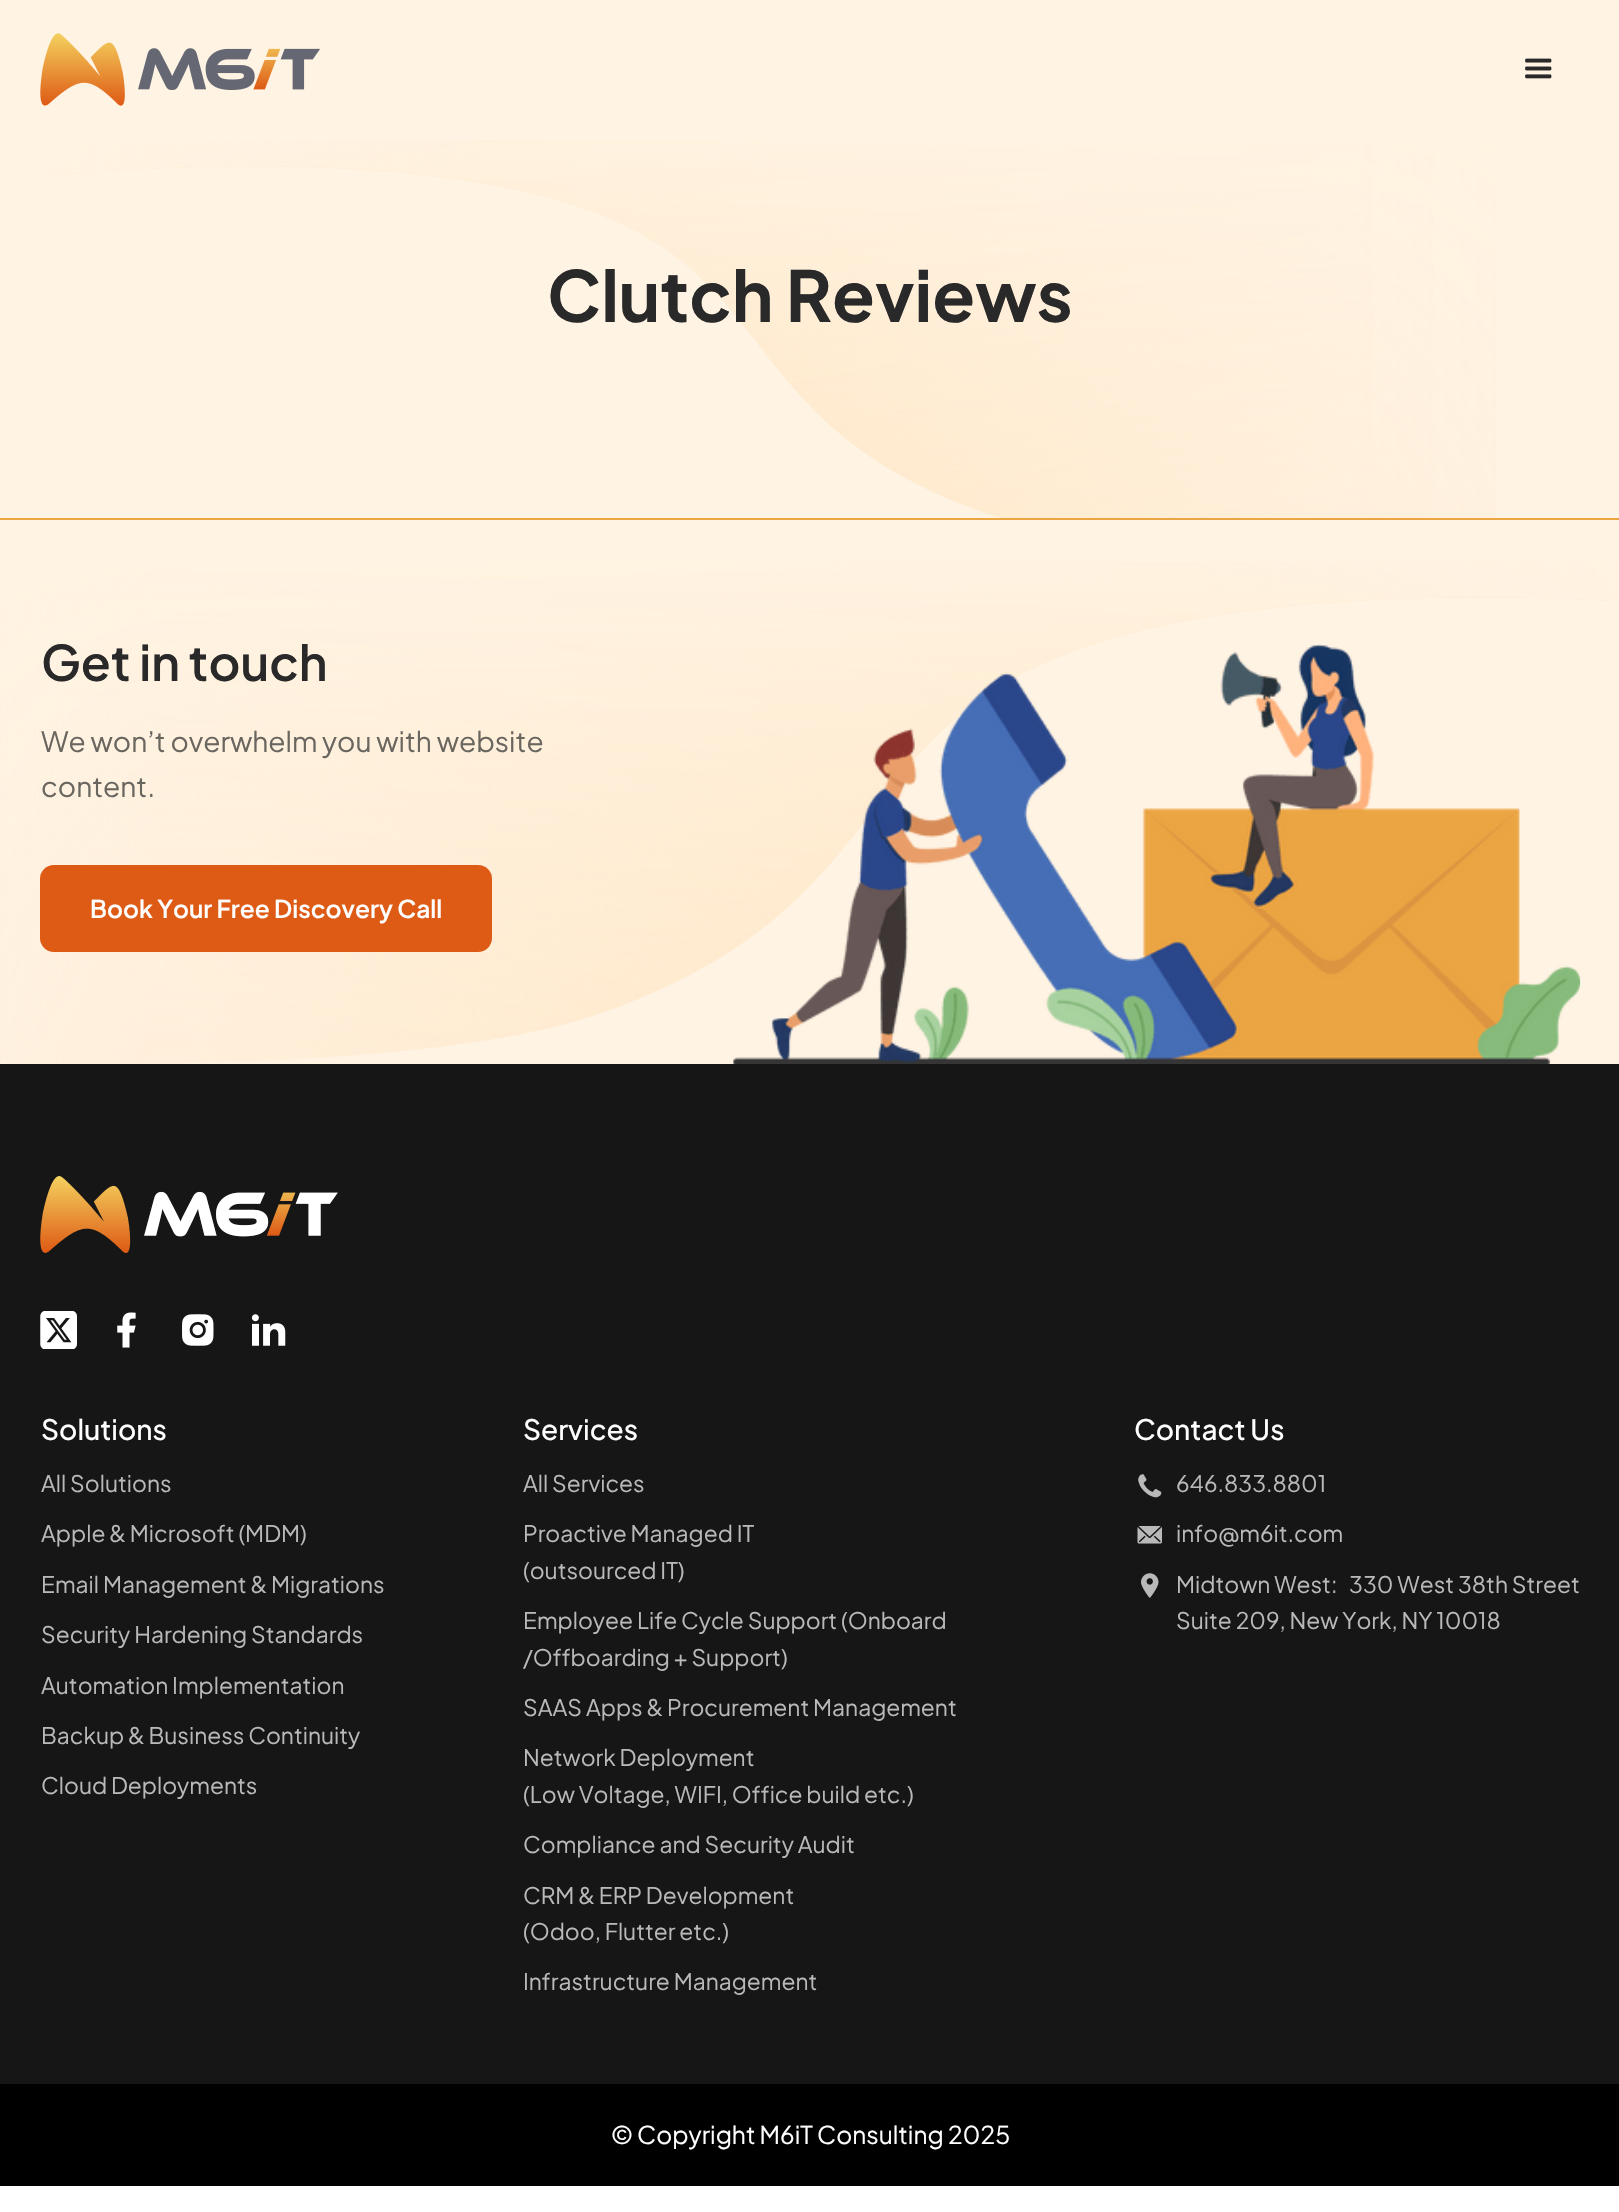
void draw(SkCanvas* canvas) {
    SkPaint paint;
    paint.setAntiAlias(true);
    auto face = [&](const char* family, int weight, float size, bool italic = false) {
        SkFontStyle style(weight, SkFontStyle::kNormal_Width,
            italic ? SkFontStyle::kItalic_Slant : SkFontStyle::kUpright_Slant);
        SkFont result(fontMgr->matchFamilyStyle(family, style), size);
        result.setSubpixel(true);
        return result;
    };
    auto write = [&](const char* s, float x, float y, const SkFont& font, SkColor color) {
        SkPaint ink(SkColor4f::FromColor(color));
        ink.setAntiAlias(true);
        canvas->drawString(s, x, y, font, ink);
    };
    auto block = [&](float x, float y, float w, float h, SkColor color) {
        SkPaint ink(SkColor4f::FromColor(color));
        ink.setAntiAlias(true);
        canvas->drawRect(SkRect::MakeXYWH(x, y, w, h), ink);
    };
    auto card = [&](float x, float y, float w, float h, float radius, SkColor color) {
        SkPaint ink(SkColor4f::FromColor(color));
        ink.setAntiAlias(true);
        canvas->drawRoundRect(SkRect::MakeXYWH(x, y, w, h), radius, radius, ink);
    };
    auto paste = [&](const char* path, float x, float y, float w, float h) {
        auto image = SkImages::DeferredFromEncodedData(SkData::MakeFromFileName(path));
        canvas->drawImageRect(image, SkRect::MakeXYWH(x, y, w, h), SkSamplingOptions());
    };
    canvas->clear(SK_ColorWHITE);
    block(0, 0, 1619, 518, SkColorSetRGB(255, 243, 227));
    paste("pic1.png", 40, 33, 280, 73);
    paste("pic2.png", 1525, 58, 27, 21);
    paste("pic3.png", 0, 140, 1496, 378);
    auto kFont1 = face("Plus Jakarta Sans", 700, 70);
    write("Clutch Reviews", 547, 322, kFont1, SkColorSetRGB(41, 41, 41));
    block(0, 518, 1619, 2, SkColorSetRGB(236, 165, 67));
    block(0, 520, 1619, 544, SkColorSetRGB(255, 243, 227));
    paste("pic4.png", 0, 561, 1619, 503);
    auto kFont2 = face("Plus Jakarta Sans", 600, 49);
    write("Get in touch", 41, 681, kFont2, SkColorSetRGB(41, 41, 41));
    auto kFont3 = face("Plus Jakarta Sans", 400, 28);
    write("We won’t overwhelm you with website", 41, 752, kFont3, SkColorSetRGB(105, 101, 95));
    write("content.", 41, 797, kFont3, SkColorSetRGB(105, 101, 95));
    card(40, 865, 452, 87, 14, SkColorSetRGB(222, 91, 21));
    auto kFont4 = face("Plus Jakarta Sans", 600, 24.5f);
    write("Book Your Free Discovery Call", 90, 918, kFont4, SK_ColorWHITE);
    paste("pic5.png", 733, 644, 848, 420);
    block(0, 1064, 1619, 1020, SkColorSetRGB(22, 22, 22));
    paste("pic6.png", 40, 1176, 298, 77);
    paste("pic7.png", 40, 1311, 37, 38);
    paste("pic8.png", 117, 1312, 19, 36);
    paste("pic9.png", 182, 1314, 32, 32);
    paste("pic10.png", 251, 1314, 35, 32);
    auto kFont5 = face("Plus Jakarta Sans", 500, 28);
    write("Solutions", 41, 1440, kFont5, SK_ColorWHITE);
    auto kFont6 = face("Plus Jakarta Sans", 400, 22.75f);
    write("All Solutions", 41, 1492, kFont6, SkColorSetRGB(185, 185, 185));
    write("Apple & Microsoft (MDM)", 41, 1542, kFont6, SkColorSetRGB(185, 185, 185));
    write("Email Management & Migrations", 41, 1593, kFont6, SkColorSetRGB(185, 185, 185));
    write("Security Hardening Standards", 41, 1643, kFont6, SkColorSetRGB(185, 185, 185));
    write("Automation Implementation", 41, 1694, kFont6, SkColorSetRGB(185, 185, 185));
    write("Backup & Business Continuity", 41, 1744, kFont6, SkColorSetRGB(185, 185, 185));
    write("Cloud Deployments", 41, 1794, kFont6, SkColorSetRGB(185, 185, 185));
    write("Services", 523, 1440, kFont5, SK_ColorWHITE);
    write("All Services", 523, 1492, kFont6, SkColorSetRGB(185, 185, 185));
    write("Proactive Managed IT", 523, 1542, kFont6, SkColorSetRGB(185, 185, 185));
    write("(outsourced IT)", 523, 1579, kFont6, SkColorSetRGB(185, 185, 185));
    write("Employee Life Cycle Support (Onboard", 523, 1629, kFont6, SkColorSetRGB(185, 185, 185));
    write("/Offboarding + Support)", 523, 1666, kFont6, SkColorSetRGB(185, 185, 185));
    write("SAAS Apps & Procurement Management", 523, 1716, kFont6, SkColorSetRGB(185, 185, 185));
    write("Network Deployment", 523, 1766, kFont6, SkColorSetRGB(185, 185, 185));
    write("(Low Voltage, WIFI, Office build etc.)", 523, 1803, kFont6, SkColorSetRGB(185, 185, 185));
    write("Compliance and Security Audit", 523, 1853, kFont6, SkColorSetRGB(185, 185, 185));
    write("CRM & ERP Development", 523, 1904, kFont6, SkColorSetRGB(185, 185, 185));
    write("(Odoo, Flutter etc.)", 523, 1940, kFont6, SkColorSetRGB(185, 185, 185));
    write("Infrastructure Management", 523, 1990, kFont6, SkColorSetRGB(185, 185, 185));
    write("Contact Us", 1134, 1440, kFont5, SK_ColorWHITE);
    paste("pic11.png", 1138, 1474, 24, 24);
    write("646.833.8801", 1176, 1492, kFont6, SkColorSetRGB(185, 185, 185));
    paste("pic12.png", 1137, 1526, 25, 18);
    write("info@m6it.com", 1176, 1542, kFont6, SkColorSetRGB(185, 185, 185));
    paste("pic13.png", 1141, 1573, 18, 25);
    write("Midtown West:   330 West 38th Street", 1176, 1593, kFont6, SkColorSetRGB(185, 185, 185));
    write("Suite 209, New York, NY 10018", 1176, 1629, kFont6, SkColorSetRGB(185, 185, 185));
    block(0, 2084, 1619, 102, SK_ColorBLACK);
    auto kFont7 = face("Plus Jakarta Sans", 400, 24.5f);
    write("© Copyright M6iT Consulting 2025", 611, 2144, kFont7, SK_ColorWHITE);
}
